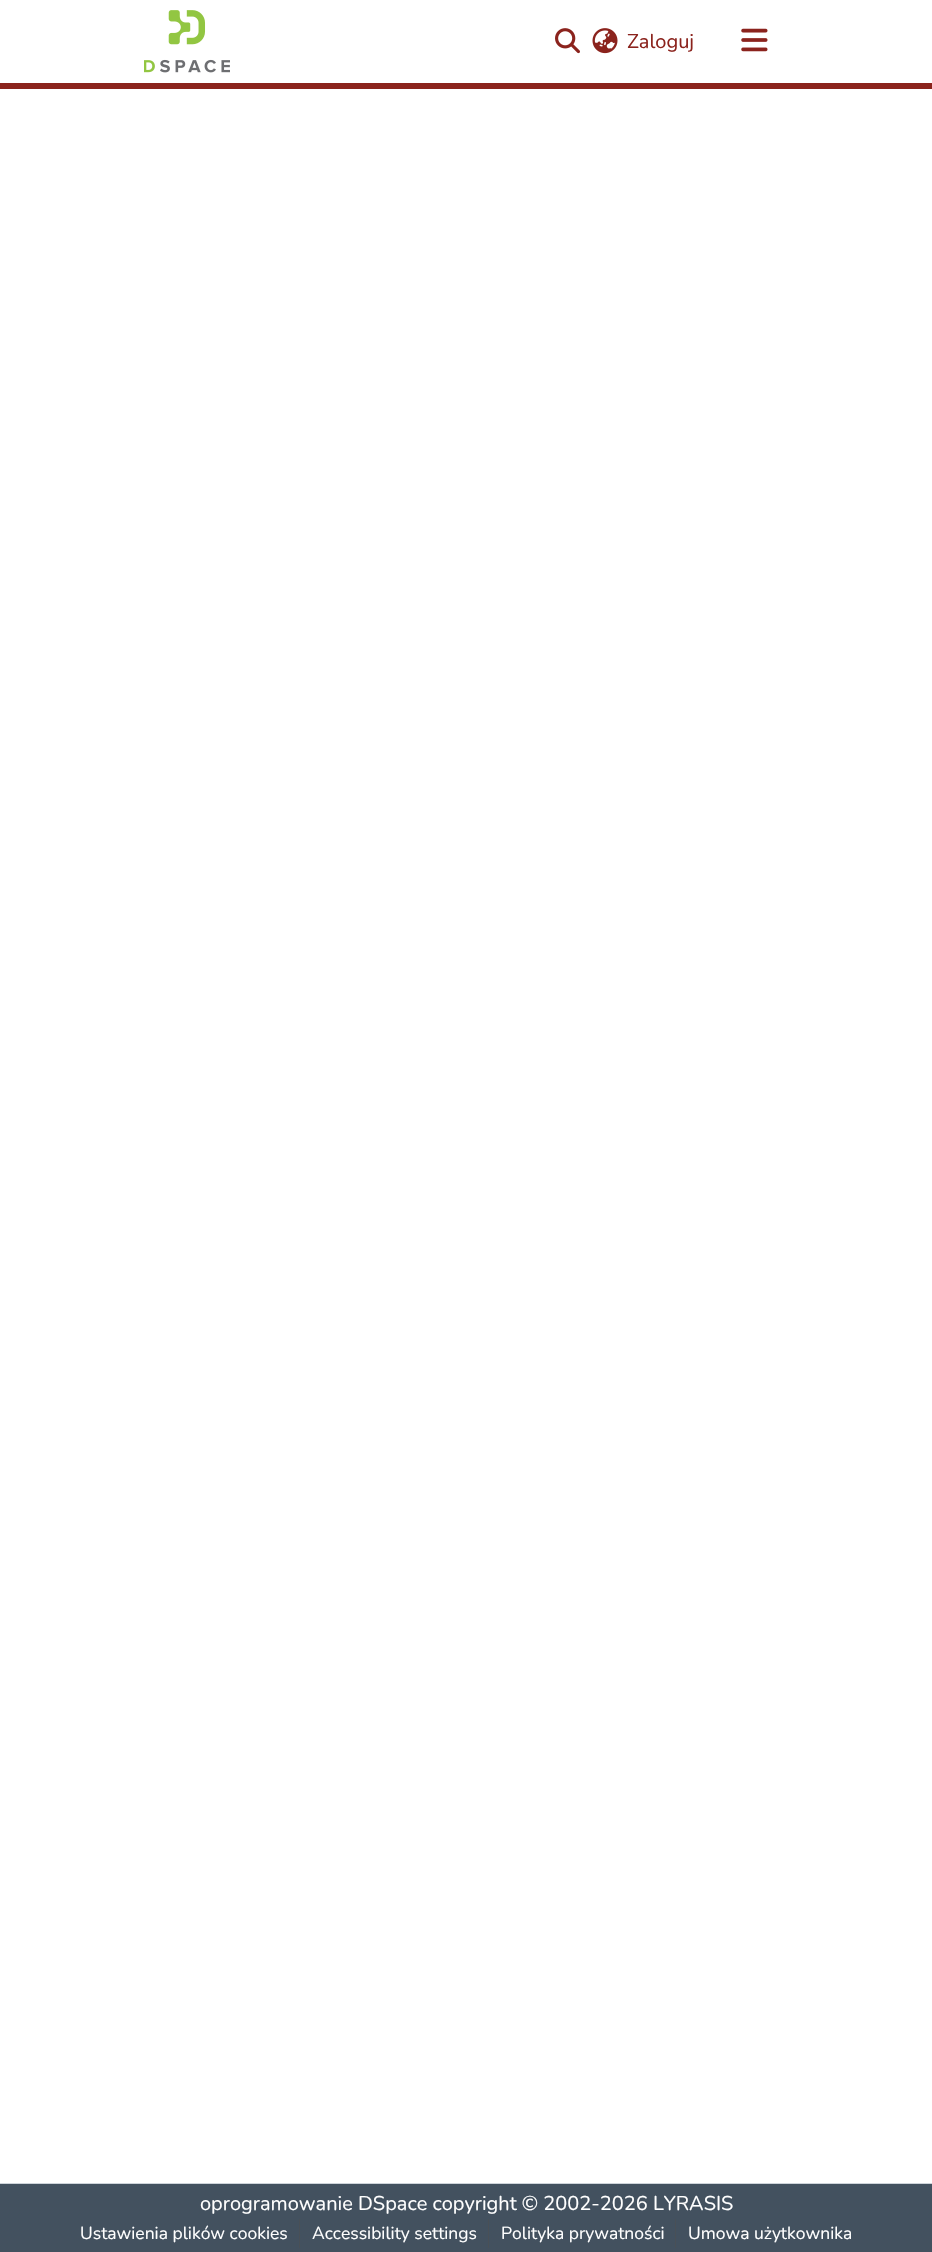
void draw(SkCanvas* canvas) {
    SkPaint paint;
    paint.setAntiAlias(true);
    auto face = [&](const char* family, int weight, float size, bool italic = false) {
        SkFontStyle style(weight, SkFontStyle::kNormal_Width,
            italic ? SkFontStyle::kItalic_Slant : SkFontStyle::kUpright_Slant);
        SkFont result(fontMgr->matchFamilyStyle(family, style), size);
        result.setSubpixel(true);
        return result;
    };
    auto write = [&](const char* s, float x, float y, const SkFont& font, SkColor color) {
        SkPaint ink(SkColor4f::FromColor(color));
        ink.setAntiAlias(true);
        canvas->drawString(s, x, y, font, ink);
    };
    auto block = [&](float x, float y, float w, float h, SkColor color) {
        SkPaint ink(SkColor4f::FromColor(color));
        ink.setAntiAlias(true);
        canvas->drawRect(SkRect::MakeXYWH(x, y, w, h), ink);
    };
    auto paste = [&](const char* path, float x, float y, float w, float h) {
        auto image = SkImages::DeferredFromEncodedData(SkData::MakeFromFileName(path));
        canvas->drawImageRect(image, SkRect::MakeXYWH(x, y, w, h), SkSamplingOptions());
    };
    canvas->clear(SK_ColorWHITE);
    block(0, 83, 932, 6, SkColorSetRGB(139, 35, 29));
    paste("pic1.png", 144, 10, 86, 63);
    paste("pic2.png", 555, 28, 25, 26);
    paste("pic3.png", 592, 28, 26, 26);
    auto kFont1 = face("Nunito", 400, 20);
    write("Zaloguj", 627, 48, kFont1, SkColorSetRGB(139, 35, 29));
    paste("pic4.png", 741, 28, 27, 24);
    block(0, 2184, 932, 68, SkColorSetRGB(67, 81, 95));
    block(0, 2183, 932, 1, SkColorSetRGB(206, 212, 218));
    write("oprogramowanie DSpace copyright © 2002-2026 LYRASIS", 200, 2210, kFont1, SK_ColorWHITE);
    auto kFont2 = face("Nunito", 400, 17.5f);
    write("Ustawienia plików cookies", 80, 2239, kFont2, SK_ColorWHITE);
    block(299, 2219, 1, 29, SkColorSetRGB(73, 80, 87));
    write("Accessibility settings", 312, 2239, kFont2, SK_ColorWHITE);
    block(488, 2219, 1, 29, SkColorSetRGB(73, 80, 87));
    write("Polityka prywatności", 501, 2239, kFont2, SK_ColorWHITE);
    block(675, 2219, 1, 29, SkColorSetRGB(73, 80, 87));
    write("Umowa użytkownika", 688, 2239, kFont2, SK_ColorWHITE);
}
